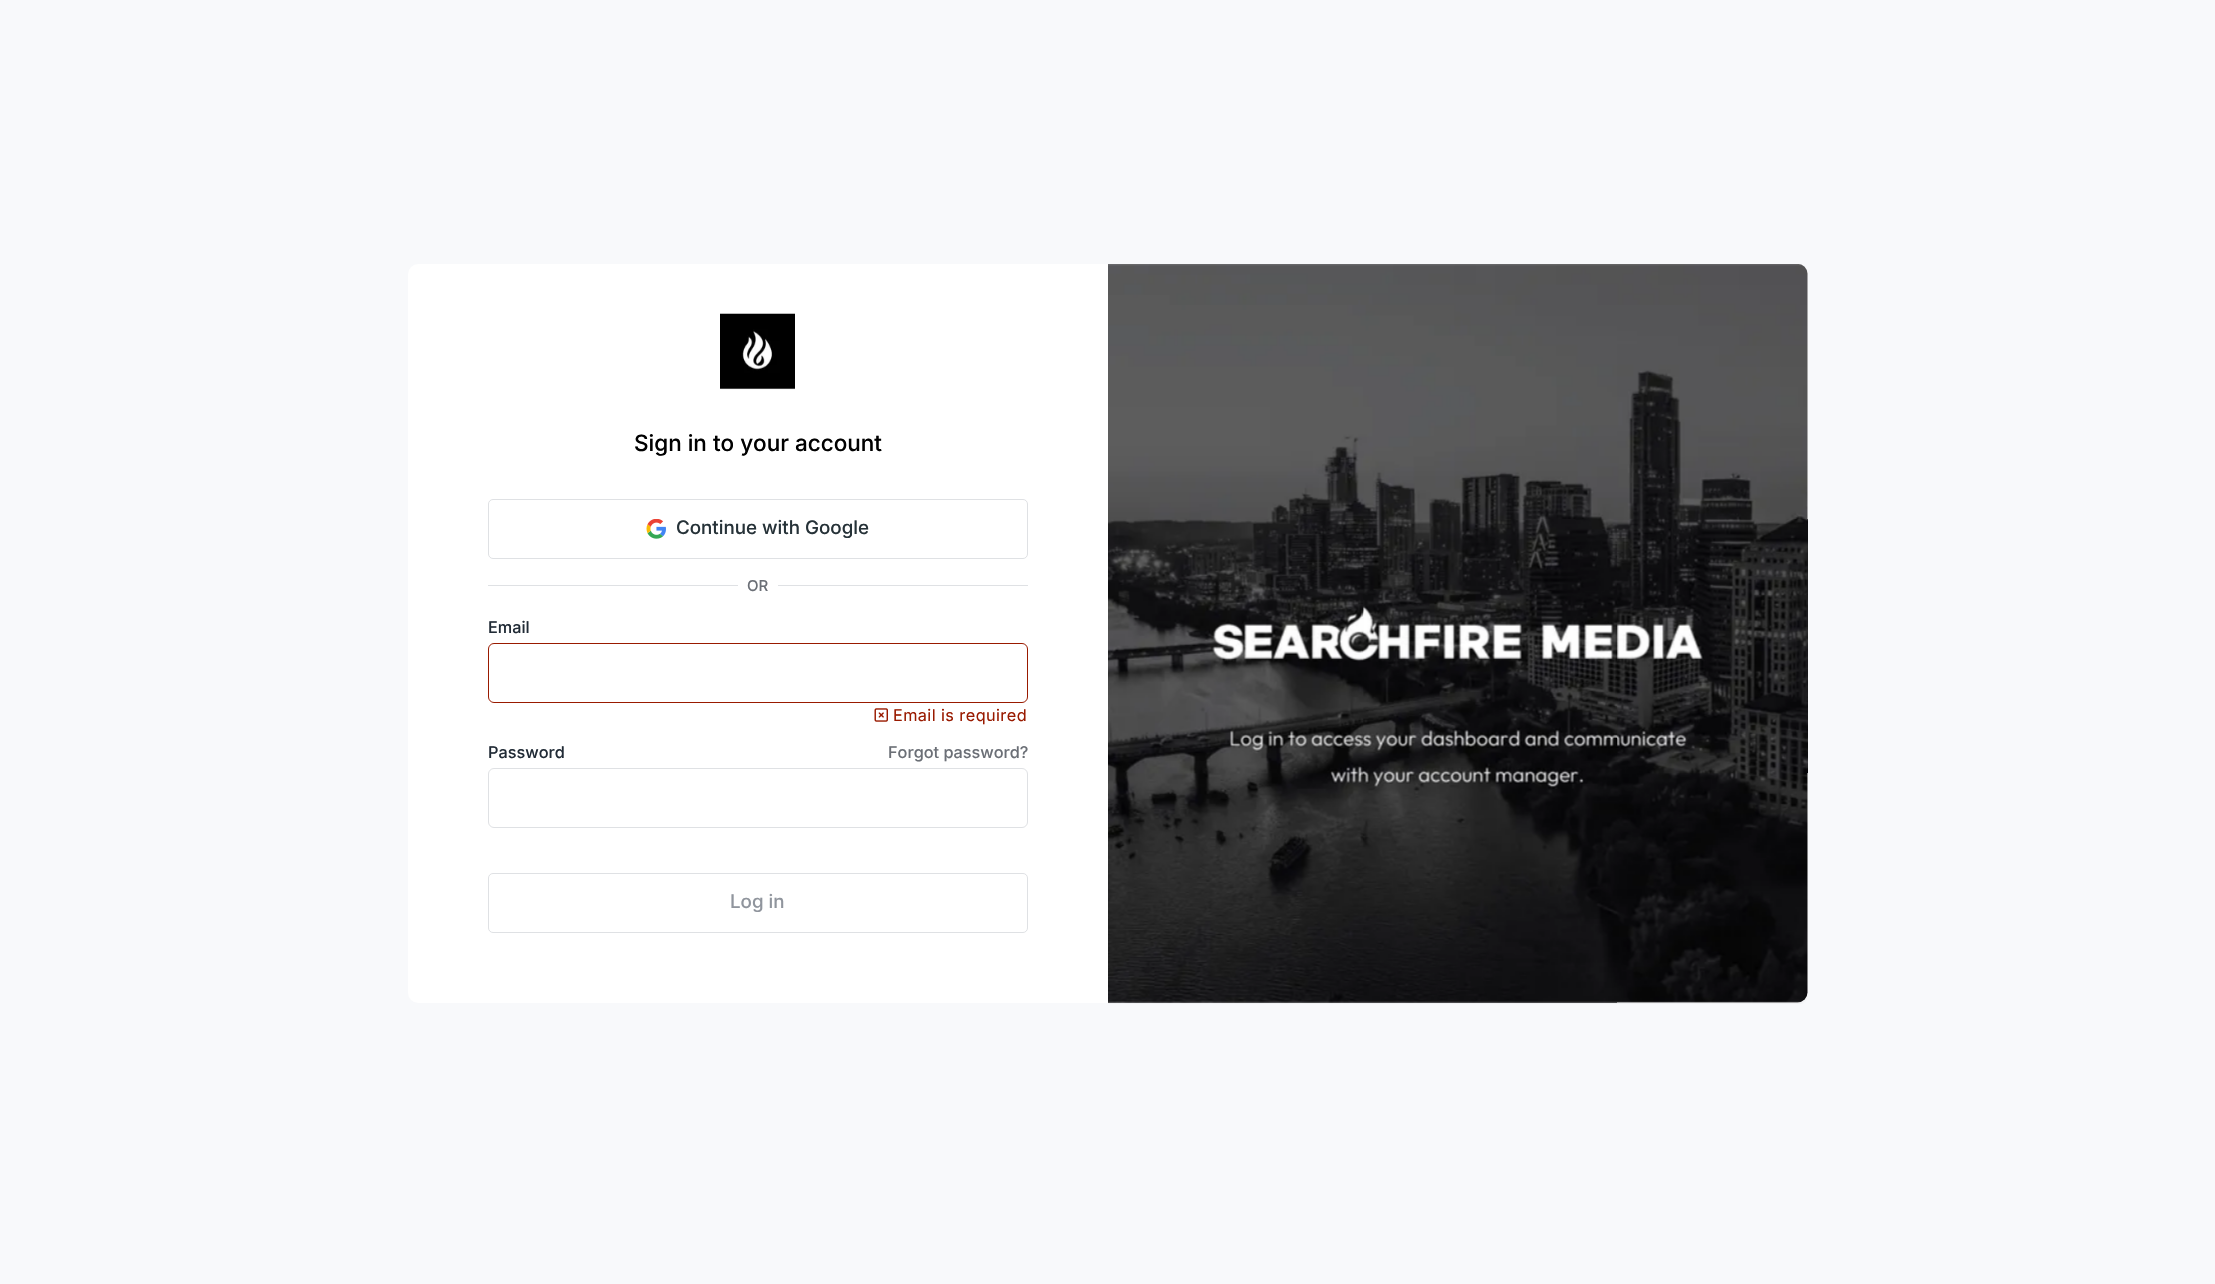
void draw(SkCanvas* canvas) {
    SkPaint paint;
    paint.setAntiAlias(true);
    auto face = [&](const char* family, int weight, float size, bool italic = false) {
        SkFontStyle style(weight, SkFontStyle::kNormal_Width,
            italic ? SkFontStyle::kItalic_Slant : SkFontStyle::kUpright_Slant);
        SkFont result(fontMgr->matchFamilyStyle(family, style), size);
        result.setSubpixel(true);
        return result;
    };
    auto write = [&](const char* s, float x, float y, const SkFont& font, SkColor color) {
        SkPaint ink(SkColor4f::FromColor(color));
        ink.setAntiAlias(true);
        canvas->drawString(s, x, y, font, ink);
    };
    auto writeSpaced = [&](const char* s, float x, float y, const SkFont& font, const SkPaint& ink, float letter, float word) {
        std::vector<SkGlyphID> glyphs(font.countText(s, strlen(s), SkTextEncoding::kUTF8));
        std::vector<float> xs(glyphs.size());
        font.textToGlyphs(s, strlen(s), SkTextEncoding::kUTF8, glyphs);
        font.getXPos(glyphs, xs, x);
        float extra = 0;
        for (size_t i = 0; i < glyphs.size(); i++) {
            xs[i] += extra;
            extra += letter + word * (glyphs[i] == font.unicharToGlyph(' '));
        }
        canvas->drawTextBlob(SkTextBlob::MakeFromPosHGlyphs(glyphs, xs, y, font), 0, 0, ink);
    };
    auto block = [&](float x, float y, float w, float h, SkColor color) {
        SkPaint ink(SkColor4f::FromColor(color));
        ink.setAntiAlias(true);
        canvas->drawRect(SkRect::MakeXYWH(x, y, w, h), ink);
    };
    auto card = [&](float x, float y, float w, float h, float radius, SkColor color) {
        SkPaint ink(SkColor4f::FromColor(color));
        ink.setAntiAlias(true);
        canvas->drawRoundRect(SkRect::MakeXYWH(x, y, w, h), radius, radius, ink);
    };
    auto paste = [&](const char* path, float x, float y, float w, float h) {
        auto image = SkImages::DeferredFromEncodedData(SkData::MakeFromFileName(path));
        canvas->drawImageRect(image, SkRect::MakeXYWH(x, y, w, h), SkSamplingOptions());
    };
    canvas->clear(SkColorSetRGB(248, 249, 251));
    card(408, 264, 1400, 739, 10, SK_ColorWHITE);
    paste("pic1.png", 720, 313, 75, 77);
    auto kFont1 = face("Inter", 500, 22.5f);
    write("Sign in to your account", 634, 451, kFont1, SK_ColorBLACK);
    paint.setStyle(SkPaint::kStroke_Style);
    paint.setStrokeWidth(1);
    paint.setColor(SkColorSetRGB(223, 225, 228));
    canvas->drawRoundRect(SkRect::MakeXYWH(488.5f, 499.5f, 539, 59), 4.5f, 4.5f, paint);
    paste("pic2.png", 646, 519, 20, 20);
    auto kFont2 = face("Inter", 500, 18.75f);
    write("Continue with Google", 676, 534, kFont2, SkColorSetRGB(38, 50, 56));
    block(488, 585, 250, 1, SkColorSetRGB(223, 225, 228));
    auto kFont3 = face("Inter", 500, 15);
    write("OR", 747, 591, kFont3, SkColorSetRGB(107, 111, 118));
    block(778, 585, 250, 1, SkColorSetRGB(223, 225, 228));
    auto kFont4 = face("Inter", 500, 16.25f);
    write("Email", 488, 633, kFont4, SkColorSetRGB(33, 43, 54));
    paint.setColor(SkColorSetRGB(153, 26, 0));
    canvas->drawRoundRect(SkRect::MakeXYWH(488.5f, 643.5f, 539, 59), 5.5f, 5.5f, paint);
    paste("pic3.png", 874, 708, 14, 14);
    auto kFont5 = face("Inter", 400, 16.25f);
    paint.setStyle(SkPaint::kFill_Style);
    writeSpaced("Email is required", 893, 721, kFont5, paint, 0.4f, 0);
    write("Password", 488, 758, kFont4, SkColorSetRGB(33, 43, 54));
    write("Forgot password?", 888, 758, kFont4, SkColorSetRGB(107, 111, 118));
    paint.setStyle(SkPaint::kStroke_Style);
    paint.setColor(SkColorSetRGB(223, 225, 228));
    canvas->drawRoundRect(SkRect::MakeXYWH(488.5f, 768.5f, 539, 59), 5.5f, 5.5f, paint);
    canvas->drawRoundRect(SkRect::MakeXYWH(488.5f, 873.5f, 539, 59), 4.5f, 4.5f, paint);
    write("Log in", 730, 908, kFont2, SkColorSetRGB(144, 149, 157));
    paste("pic4.png", 1108, 264, 700, 740);
}
